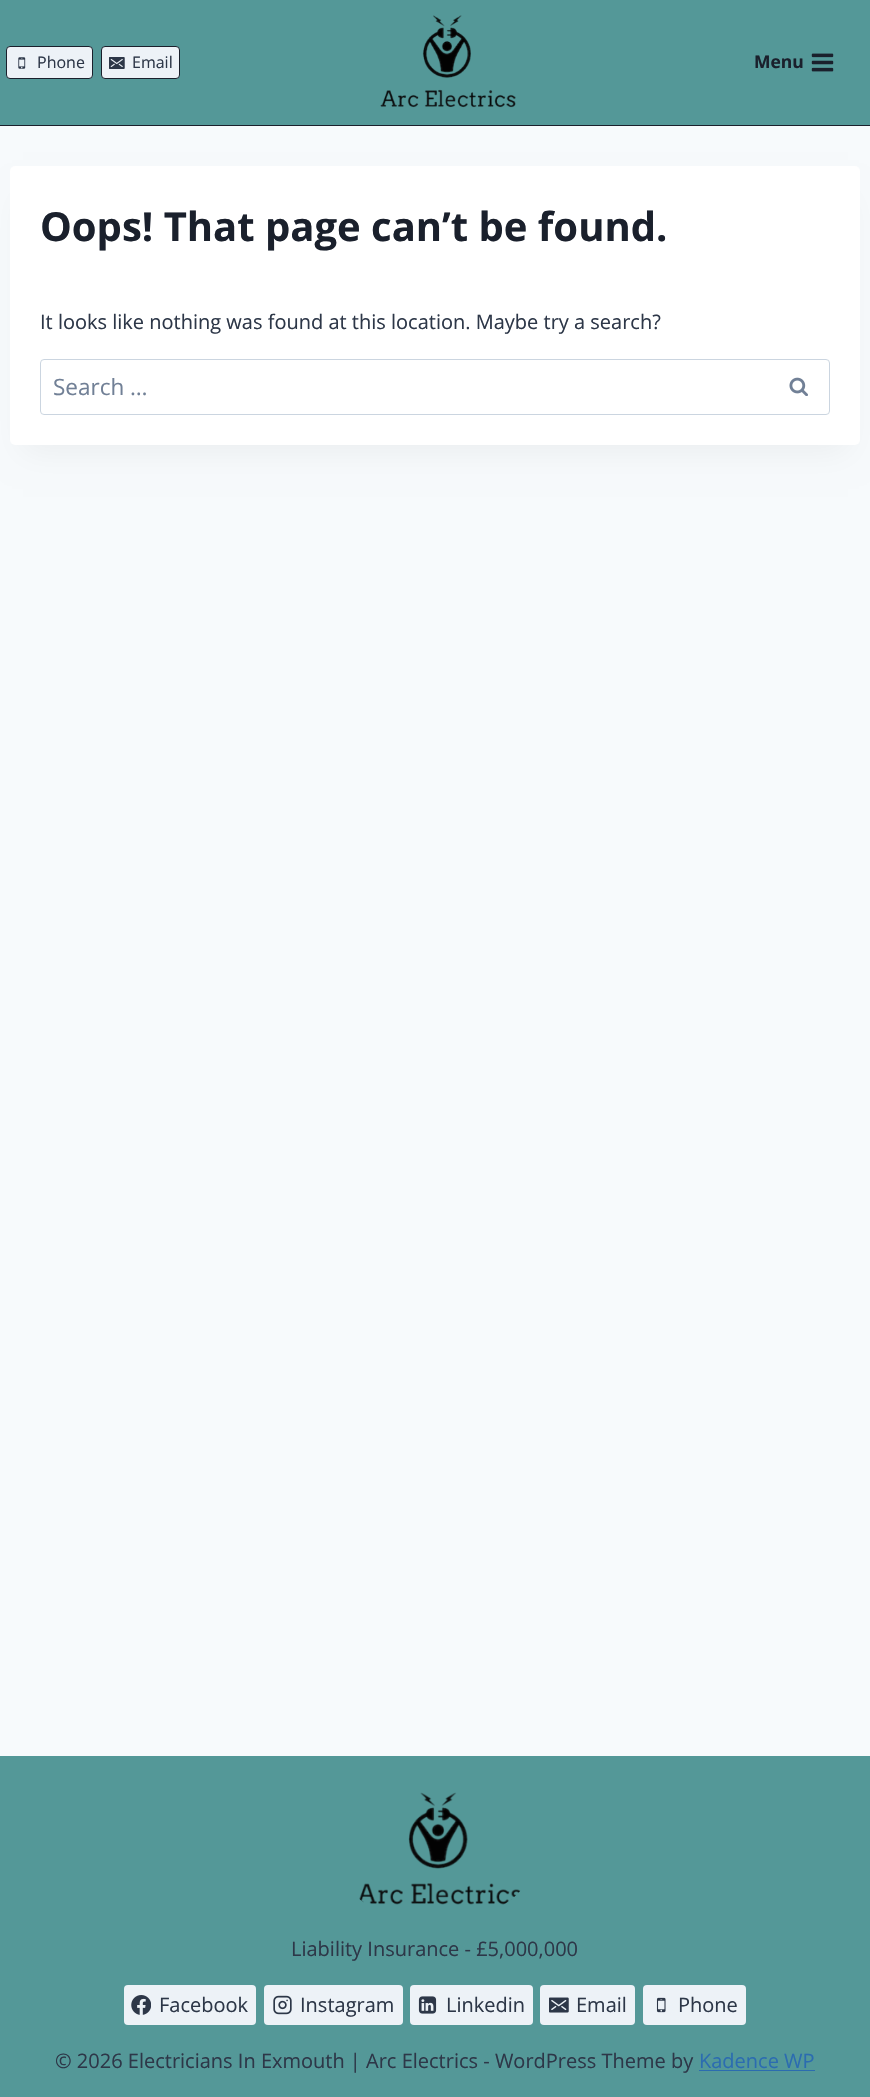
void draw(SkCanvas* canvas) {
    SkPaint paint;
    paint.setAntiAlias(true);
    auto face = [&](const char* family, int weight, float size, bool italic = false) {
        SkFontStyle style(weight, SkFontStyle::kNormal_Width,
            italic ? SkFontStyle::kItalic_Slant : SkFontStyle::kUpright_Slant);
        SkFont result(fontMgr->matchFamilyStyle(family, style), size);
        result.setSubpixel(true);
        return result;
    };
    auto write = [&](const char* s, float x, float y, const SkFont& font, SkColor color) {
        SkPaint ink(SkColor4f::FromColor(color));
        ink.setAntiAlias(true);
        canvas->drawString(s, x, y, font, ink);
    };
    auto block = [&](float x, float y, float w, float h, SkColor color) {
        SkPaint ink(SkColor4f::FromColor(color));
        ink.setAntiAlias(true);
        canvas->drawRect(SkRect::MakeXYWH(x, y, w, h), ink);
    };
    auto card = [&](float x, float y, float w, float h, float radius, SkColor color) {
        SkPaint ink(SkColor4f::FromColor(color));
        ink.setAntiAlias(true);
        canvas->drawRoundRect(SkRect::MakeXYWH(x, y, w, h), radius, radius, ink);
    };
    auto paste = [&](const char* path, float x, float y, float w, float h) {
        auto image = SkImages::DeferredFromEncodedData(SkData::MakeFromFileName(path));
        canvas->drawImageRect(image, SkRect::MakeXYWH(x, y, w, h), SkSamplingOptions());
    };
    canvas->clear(SkColorSetRGB(247, 250, 252));
    block(0, 0, 870, 125, SkColorSetRGB(84, 152, 152));
    block(0, 125, 870, 1, SkColorSetRGB(26, 32, 44));
    paint.setColor(SkColorSetRGB(237, 242, 247));
    canvas->drawRoundRect(SkRect::MakeXYWH(6.5f, 46.5f, 86, 32), 3.5f, 3.5f, paint);
    paint.setStyle(SkPaint::kStroke_Style);
    paint.setStrokeWidth(1);
    paint.setColor(SkColorSetRGB(26, 32, 44));
    canvas->drawRoundRect(SkRect::MakeXYWH(6.5f, 46.5f, 86, 32), 3.5f, 3.5f, paint);
    paste("pic1.png", 18, 57, 8, 12);
    auto kFont1 = face("Open Sans", 400, 16);
    write("Phone", 37, 68, kFont1, SkColorSetRGB(45, 55, 72));
    paint.setStyle(SkPaint::kFill_Style);
    paint.setColor(SkColorSetRGB(237, 242, 247));
    canvas->drawRoundRect(SkRect::MakeXYWH(101.5f, 46.5f, 78, 32), 3.5f, 3.5f, paint);
    paint.setStyle(SkPaint::kStroke_Style);
    paint.setColor(SkColorSetRGB(26, 32, 44));
    canvas->drawRoundRect(SkRect::MakeXYWH(101.5f, 46.5f, 78, 32), 3.5f, 3.5f, paint);
    paste("pic2.png", 109, 57, 16, 12);
    write("Email", 132, 68, kFont1, SkColorSetRGB(45, 55, 72));
    paste("pic3.png", 380, 15, 136, 93);
    auto kFont2 = face("Open Sans", 700, 17.5f);
    write("Menu", 754, 68, kFont2, SkColorSetRGB(26, 32, 44));
    paste("pic4.png", 811, 53, 23, 19);
    paint.setStyle(SkPaint::kFill_Style);
    paint.setColor(SkColorSetARGB(13, 0, 0, 0));
    paint.setMaskFilter(SkMaskFilter::MakeBlur(kNormal_SkBlurStyle, 15.5f));
    canvas->drawRect(SkRect::MakeXYWH(23, 198, 825, 253), paint);
    paint.setMaskFilter(nullptr);
    card(10, 166, 850, 279, 5, SK_ColorWHITE);
    auto kFont3 = face("Open Sans", 700, 40);
    write("Oops! That page can’t be found.", 40, 241, kFont3, SkColorSetRGB(26, 32, 44));
    auto kFont4 = face("Open Sans", 400, 20);
    write("It looks like nothing was found at this location. Maybe try a search?", 40, 329, kFont4, SkColorSetRGB(45, 55, 72));
    paint.setStyle(SkPaint::kStroke_Style);
    paint.setColor(SkColorSetRGB(203, 213, 224));
    canvas->drawRoundRect(SkRect::MakeXYWH(40.5f, 359.5f, 789, 55), 3.5f, 3.5f, paint);
    auto kFont5 = face("Open Sans", 400, 22.5f);
    write("Search …", 53, 395, kFont5, SkColorSetRGB(113, 128, 150));
    paste("pic5.png", 789, 377, 19, 19);
    block(0, 1756, 870, 341, SkColorSetRGB(84, 152, 152));
    paste("pic6.png", 359, 1792, 162, 113);
    write("Liability Insurance - £5,000,000", 291, 1956, kFont4, SkColorSetRGB(45, 55, 72));
    card(124, 1985, 132, 40, 4, SkColorSetRGB(237, 242, 247));
    paste("pic7.png", 131, 1995, 20, 20);
    write("Facebook", 159, 2012, kFont4, SkColorSetRGB(45, 55, 72));
    card(264, 1985, 139, 40, 4, SkColorSetRGB(237, 242, 247));
    paste("pic8.png", 273, 1995, 19, 20);
    write("Instagram", 300, 2012, kFont4, SkColorSetRGB(45, 55, 72));
    card(410, 1985, 123, 40, 4, SkColorSetRGB(237, 242, 247));
    paste("pic9.png", 418, 1996, 19, 18);
    write("Linkedin", 446, 2012, kFont4, SkColorSetRGB(45, 55, 72));
    card(540, 1985, 95, 40, 4, SkColorSetRGB(237, 242, 247));
    paste("pic10.png", 549, 1997, 20, 16);
    write("Email", 576, 2012, kFont4, SkColorSetRGB(45, 55, 72));
    card(643, 1985, 103, 40, 4, SkColorSetRGB(237, 242, 247));
    paste("pic11.png", 656, 1997, 10, 16);
    write("Phone", 678, 2012, kFont4, SkColorSetRGB(45, 55, 72));
    write("© 2026 Electricians In Exmouth | Arc Electrics - WordPress Theme by", 55, 2068, kFont4, SkColorSetRGB(45, 55, 72));
    write("Kadence WP", 699, 2068, kFont4, SkColorSetRGB(43, 108, 176));
    block(699, 2070, 116, 1, SkColorSetRGB(43, 108, 176));
}
